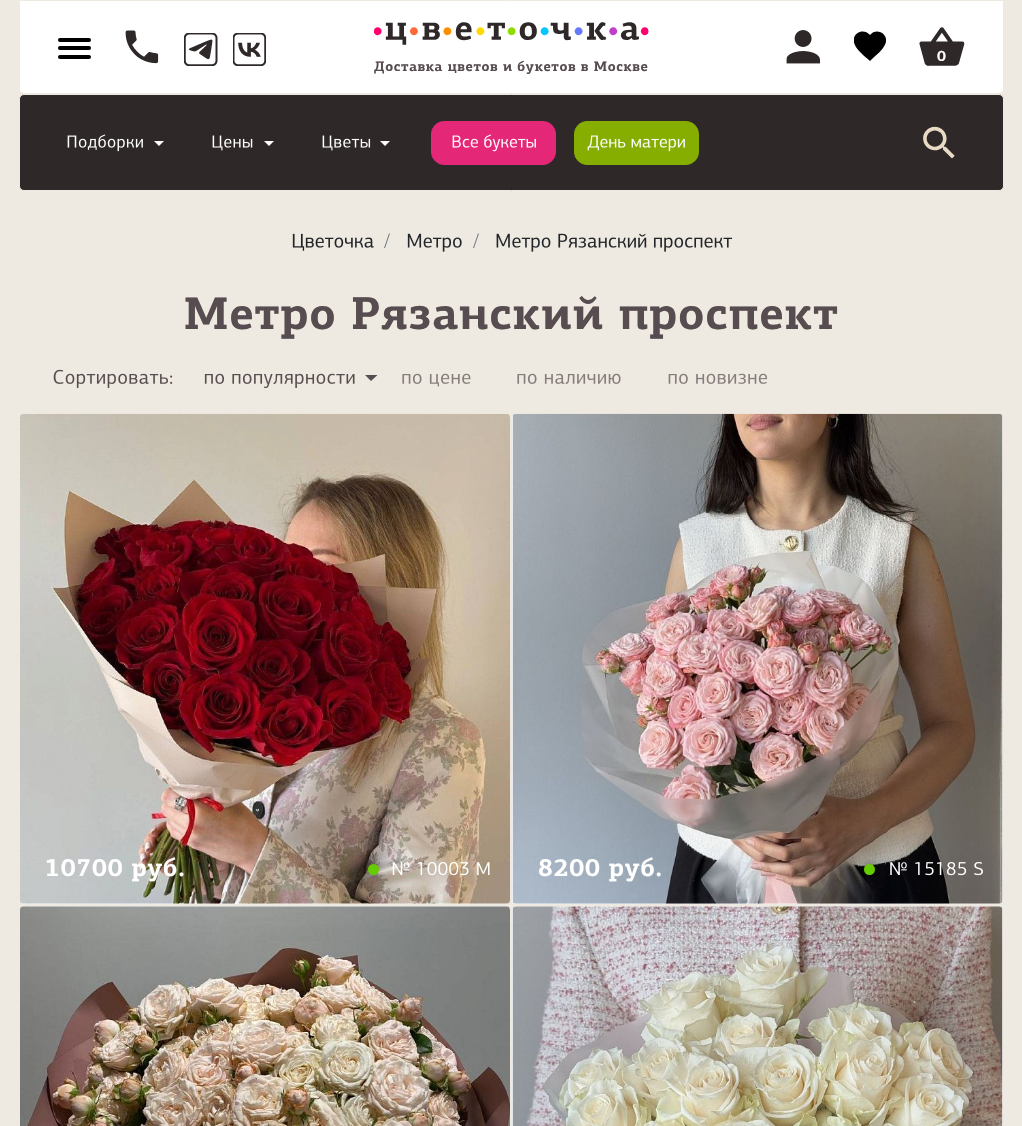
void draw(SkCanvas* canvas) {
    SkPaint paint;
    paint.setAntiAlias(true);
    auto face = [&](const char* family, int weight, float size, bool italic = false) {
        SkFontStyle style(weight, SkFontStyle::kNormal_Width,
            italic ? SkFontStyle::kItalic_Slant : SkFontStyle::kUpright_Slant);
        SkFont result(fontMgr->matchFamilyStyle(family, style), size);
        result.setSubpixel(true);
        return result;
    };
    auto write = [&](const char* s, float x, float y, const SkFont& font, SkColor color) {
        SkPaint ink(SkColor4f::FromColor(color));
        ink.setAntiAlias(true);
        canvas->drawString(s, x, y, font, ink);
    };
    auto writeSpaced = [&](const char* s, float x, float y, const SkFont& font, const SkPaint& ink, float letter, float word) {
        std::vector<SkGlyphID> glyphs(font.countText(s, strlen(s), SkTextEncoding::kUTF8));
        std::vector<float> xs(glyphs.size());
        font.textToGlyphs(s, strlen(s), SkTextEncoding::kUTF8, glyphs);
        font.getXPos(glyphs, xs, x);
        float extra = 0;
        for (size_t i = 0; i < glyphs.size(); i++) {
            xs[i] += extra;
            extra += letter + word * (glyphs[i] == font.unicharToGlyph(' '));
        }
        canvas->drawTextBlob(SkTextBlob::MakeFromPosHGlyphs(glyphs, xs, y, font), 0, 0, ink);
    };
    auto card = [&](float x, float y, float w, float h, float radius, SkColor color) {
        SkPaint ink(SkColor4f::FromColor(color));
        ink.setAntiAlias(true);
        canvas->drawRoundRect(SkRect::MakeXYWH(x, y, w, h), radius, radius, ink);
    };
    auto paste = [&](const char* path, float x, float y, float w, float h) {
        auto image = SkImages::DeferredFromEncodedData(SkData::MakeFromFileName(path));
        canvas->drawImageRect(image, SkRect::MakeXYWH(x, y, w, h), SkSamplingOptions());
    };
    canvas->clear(SkColorSetRGB(239, 234, 225));
    paint.setColor(SK_ColorWHITE);
    canvas->drawPath(SkPathBuilder().moveTo(19.5f, 0.5f).lineTo(1003.5f, 0.5f).lineTo(1003.5f, 89).cubicTo(1003.5f, 91.5f, 1001.5f, 93.5f, 999, 93.5f).lineTo(24, 93.5f).cubicTo(21.5f, 93.5f, 19.5f, 91.5f, 19.5f, 89).close().detach(), paint);
    paint.setStyle(SkPaint::kStroke_Style);
    paint.setStrokeWidth(1);
    paint.setColor(SkColorSetRGB(239, 234, 225));
    canvas->drawPath(SkPathBuilder().moveTo(19.5f, 0.5f).lineTo(1003.5f, 0.5f).lineTo(1003.5f, 89).cubicTo(1003.5f, 91.5f, 1001.5f, 93.5f, 999, 93.5f).lineTo(24, 93.5f).cubicTo(21.5f, 93.5f, 19.5f, 91.5f, 19.5f, 89).close().detach(), paint);
    card(58, 46, 33, 4, 2, SK_ColorBLACK);
    card(58, 38, 33, 4, 2, SK_ColorBLACK);
    card(58, 55, 33, 4, 2, SK_ColorBLACK);
    paste("pic1.png", 125, 30, 34, 34);
    paste("pic2.png", 184, 33, 34, 33);
    paste("pic3.png", 233, 33, 33, 33);
    paste("pic4.png", 786, 30, 34, 34);
    canvas->save();
    canvas->clipRect(SkRect::MakeXYWH(854, 30, 32, 33));
    paint.setStyle(SkPaint::kFill_Style);
    paint.setColor(SK_ColorBLACK);
    canvas->drawPath(SkPathBuilder().moveTo(870, 61).cubicTo(864.5f, 56, 857, 50.5f, 854.5f, 44).cubicTo(850.5f, 34, 863, 27, 870, 35).cubicTo(876.5f, 27, 889, 34, 885.5f, 43.5f).cubicTo(883, 50, 877, 54.5f, 872, 59).close().detach(), paint);
    canvas->restore();
    paste("pic5.png", 919, 27, 46, 39);
    auto kFont1 = face("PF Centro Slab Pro", 700, 15);
    write("0", 937, 61, kFont1, SK_ColorWHITE);
    paste("pic6.png", 374, 22, 275, 23);
    auto kFont2 = face("PF Centro Slab Pro", 700, 13.75f);
    paint.setColor(SkColorSetRGB(87, 76, 79));
    writeSpaced("Доставка цветов и букетов в Москве", 374, 71, kFont2, paint, 0.6f, 0);
    paint.setColor(SkColorSetRGB(47, 40, 40));
    canvas->drawRoundRect(SkRect::MakeXYWH(19.5f, 94.5f, 984, 96), 4.5f, 4.5f, paint);
    paint.setStyle(SkPaint::kStroke_Style);
    paint.setColor(SkColorSetRGB(239, 234, 225));
    canvas->drawRoundRect(SkRect::MakeXYWH(19.5f, 94.5f, 984, 96), 4.5f, 4.5f, paint);
    paste("pic7.png", 67, 134, 76, 18);
    paint.setStyle(SkPaint::kFill_Style);
    paint.setColor(SK_ColorWHITE);
    canvas->drawPath(SkPathBuilder().moveTo(154, 141).lineTo(164, 141).lineTo(159, 146).close().detach(), paint);
    paste("pic8.png", 212, 135, 41, 16);
    canvas->drawPath(SkPathBuilder().moveTo(264, 141).lineTo(274, 141).lineTo(269, 146).close().detach(), paint);
    paste("pic9.png", 322, 135, 49, 16);
    canvas->drawPath(SkPathBuilder().moveTo(380, 141).lineTo(390, 141).lineTo(385, 146).close().detach(), paint);
    paint.setColor(SkColorSetRGB(229, 39, 119));
    canvas->drawRoundRect(SkRect::MakeXYWH(431.5f, 121.5f, 124, 43), 12.5f, 12.5f, paint);
    paint.setStyle(SkPaint::kStroke_Style);
    canvas->drawRoundRect(SkRect::MakeXYWH(431.5f, 121.5f, 124, 43), 12.5f, 12.5f, paint);
    paste("pic10.png", 452, 134, 84, 18);
    paint.setStyle(SkPaint::kFill_Style);
    paint.setColor(SkColorSetRGB(133, 174, 0));
    canvas->drawRoundRect(SkRect::MakeXYWH(574.5f, 121.5f, 124, 43), 12.5f, 12.5f, paint);
    paint.setStyle(SkPaint::kStroke_Style);
    canvas->drawRoundRect(SkRect::MakeXYWH(574.5f, 121.5f, 124, 43), 12.5f, 12.5f, paint);
    paste("pic11.png", 587, 135, 98, 17);
    paste("pic12.png", 923, 126, 32, 33);
    paste("pic13.png", 292, 233, 82, 18);
    paint.setStyle(SkPaint::kFill_Style);
    paint.setColor(SkColorSetRGB(108, 117, 125));
    canvas->drawPath(SkPathBuilder().moveTo(390, 233.5f).lineTo(385, 248).lineTo(384, 248).lineTo(389, 233.5f).close().detach(), paint);
    paste("pic14.png", 407, 233, 55, 19);
    canvas->drawPath(SkPathBuilder().moveTo(479, 233.5f).lineTo(474, 248).lineTo(473, 248).lineTo(478, 233.5f).close().detach(), paint);
    paste("pic15.png", 496, 233, 237, 19);
    auto kFont3 = face("PF Centro Slab Pro", 700, 46);
    paint.setColor(SkColorSetRGB(87, 76, 79));
    writeSpaced("Метро Рязанский проспект", 184, 329, kFont3, paint, 0.9f, 0);
    paste("pic16.png", 53, 369, 120, 19);
    paste("pic17.png", 204, 373, 151, 15);
    canvas->drawPath(SkPathBuilder().moveTo(365, 375).lineTo(377.5f, 375).lineTo(371, 381).close().detach(), paint);
    paste("pic18.png", 402, 373, 69, 14);
    paste("pic19.png", 517, 373, 104, 12);
    paste("pic20.png", 668, 373, 100, 11);
    paint.setColor(SK_ColorWHITE);
    canvas->drawRoundRect(SkRect::MakeXYWH(19.5f, 413.5f, 491, 491), 4.5f, 4.5f, paint);
    paint.setStyle(SkPaint::kStroke_Style);
    paint.setColor(SkColorSetRGB(239, 234, 225));
    canvas->drawRoundRect(SkRect::MakeXYWH(19.5f, 413.5f, 491, 491), 4.5f, 4.5f, paint);
    paste("pic21.png", 20, 413, 490, 491);
    auto kFont4 = face("PF Centro Slab Pro", 700, 25);
    paint.setStyle(SkPaint::kFill_Style);
    paint.setColor(SK_ColorWHITE);
    writeSpaced("10700 руб.", 45, 876, kFont4, paint, 0.75f, 0);
    paint.setColor(SK_ColorBLACK);
    paint.setMaskFilter(SkMaskFilter::MakeBlur(kNormal_SkBlurStyle, 4.5f));
    canvas->drawRoundRect(SkRect::MakeXYWH(370, 866, 6, 7), 3, 3, paint);
    paint.setMaskFilter(nullptr);
    paint.setColor(SkColorSetRGB(102, 204, 0));
    canvas->drawCircle(373.5f, 869.5f, 5.5f, paint);
    paste("pic22.png", 392, 862, 98, 14);
    paint.setColor(SK_ColorWHITE);
    canvas->drawRoundRect(SkRect::MakeXYWH(511.5f, 413.5f, 492, 491), 4.5f, 4.5f, paint);
    paint.setStyle(SkPaint::kStroke_Style);
    paint.setColor(SkColorSetRGB(239, 234, 225));
    canvas->drawRoundRect(SkRect::MakeXYWH(511.5f, 413.5f, 492, 491), 4.5f, 4.5f, paint);
    paste("pic23.png", 512, 413, 491, 491);
    paint.setStyle(SkPaint::kFill_Style);
    paint.setColor(SK_ColorWHITE);
    writeSpaced("8200 руб.", 538, 876, kFont4, paint, 0.75f, 0);
    paint.setColor(SK_ColorBLACK);
    paint.setMaskFilter(SkMaskFilter::MakeBlur(kNormal_SkBlurStyle, 4.5f));
    canvas->drawRoundRect(SkRect::MakeXYWH(866, 866, 7, 7), 3.5f, 3.5f, paint);
    paint.setMaskFilter(nullptr);
    paint.setColor(SkColorSetRGB(102, 204, 0));
    canvas->drawCircle(869.5f, 869.5f, 5.5f, paint);
    paste("pic24.png", 890, 862, 93, 14);
    paint.setColor(SK_ColorWHITE);
    canvas->drawRoundRect(SkRect::MakeXYWH(19.5f, 905.5f, 491, 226), 4.5f, 4.5f, paint);
    paint.setStyle(SkPaint::kStroke_Style);
    paint.setColor(SkColorSetRGB(239, 234, 225));
    canvas->drawRoundRect(SkRect::MakeXYWH(19.5f, 905.5f, 491, 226), 4.5f, 4.5f, paint);
    paste("pic25.png", 20, 906, 490, 220);
    paint.setStyle(SkPaint::kFill_Style);
    paint.setColor(SK_ColorWHITE);
    canvas->drawRoundRect(SkRect::MakeXYWH(511.5f, 905.5f, 492, 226), 4.5f, 4.5f, paint);
    paint.setStyle(SkPaint::kStroke_Style);
    paint.setColor(SkColorSetRGB(239, 234, 225));
    canvas->drawRoundRect(SkRect::MakeXYWH(511.5f, 905.5f, 492, 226), 4.5f, 4.5f, paint);
    paste("pic26.png", 512, 906, 491, 220);
}
